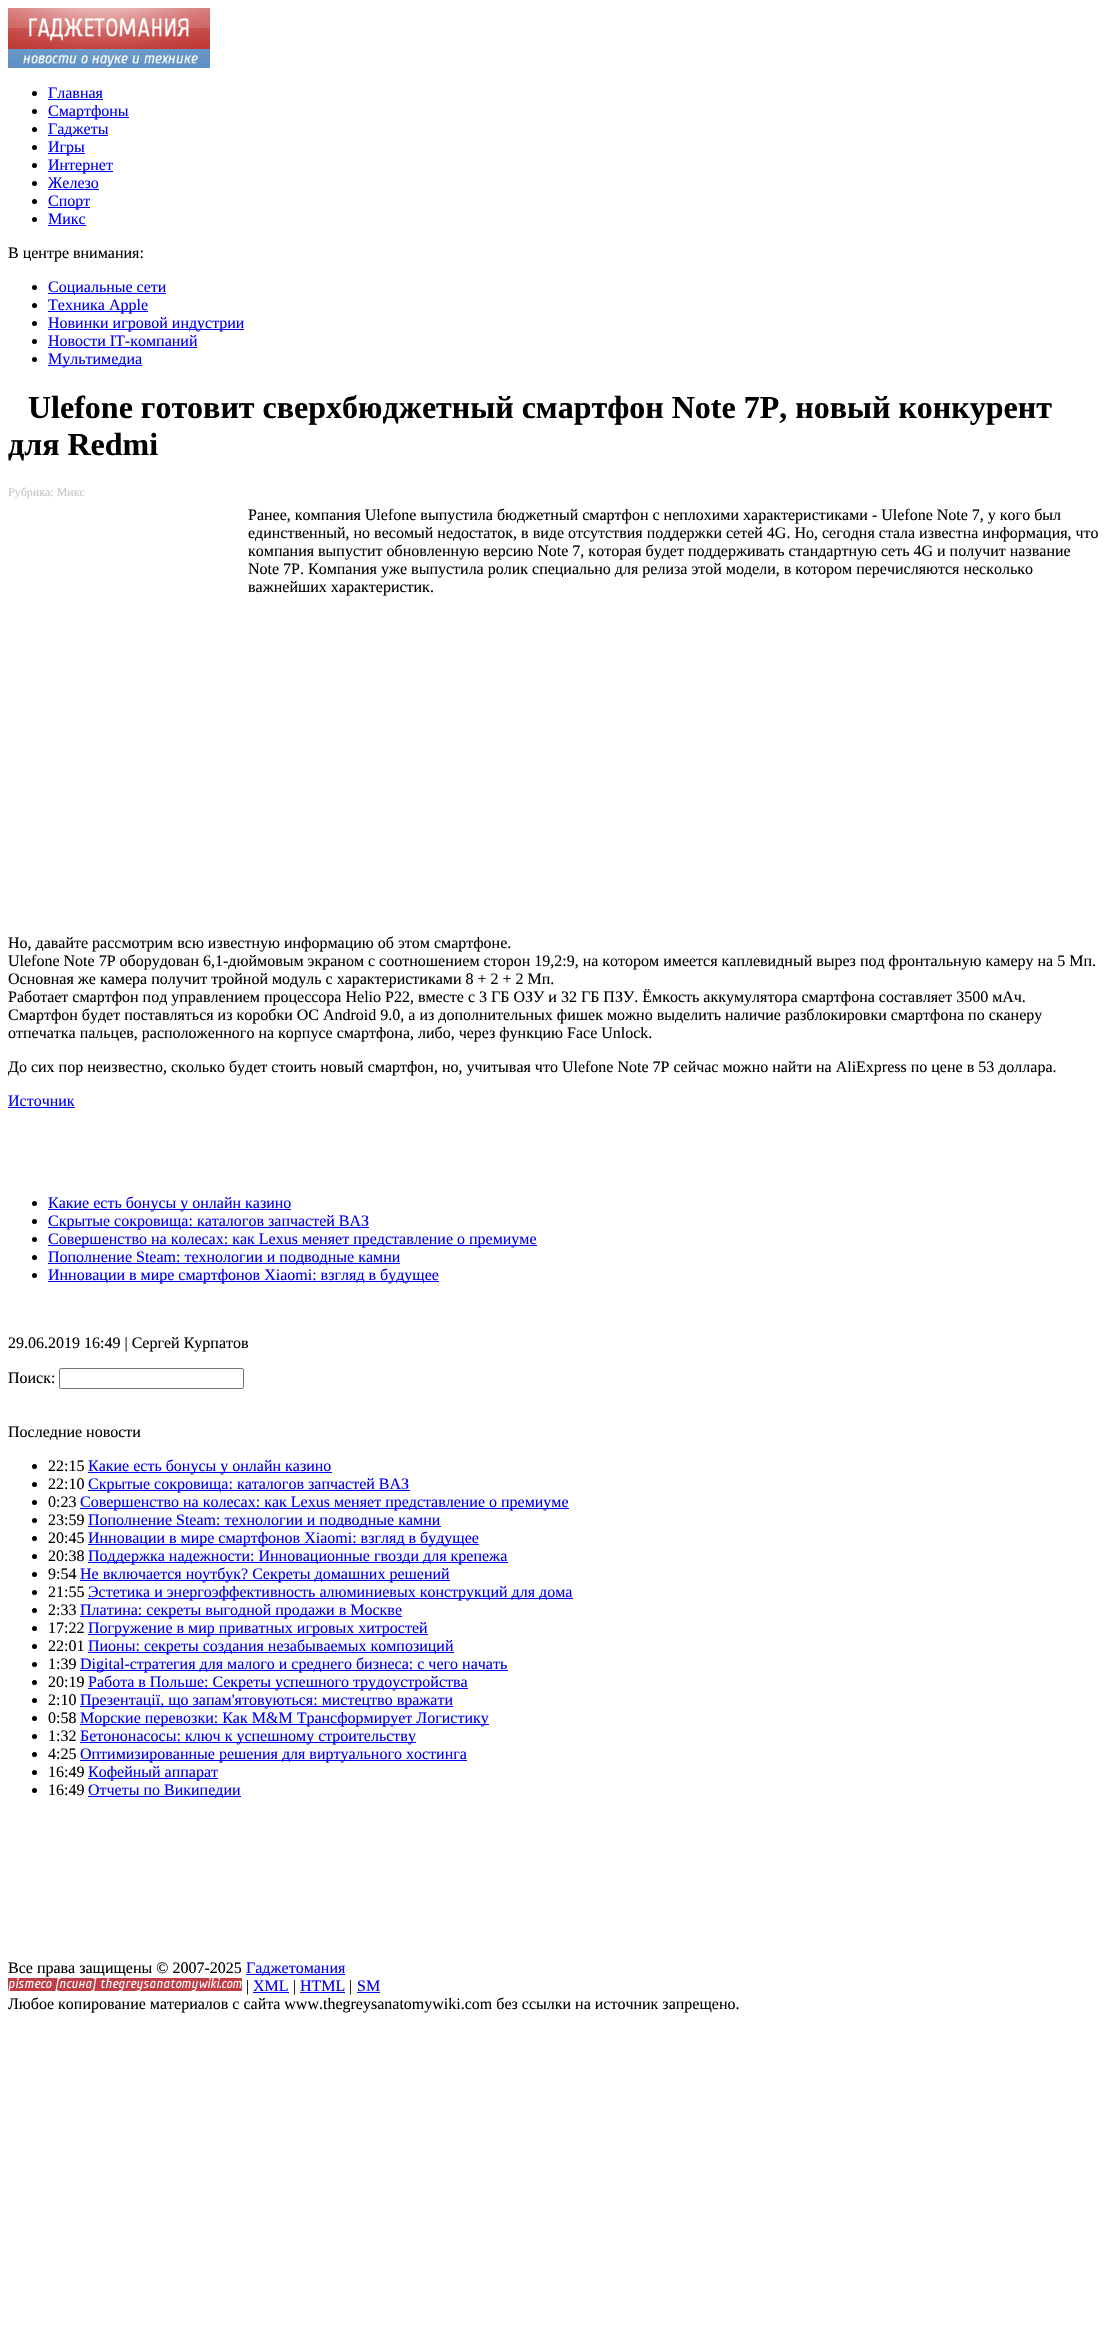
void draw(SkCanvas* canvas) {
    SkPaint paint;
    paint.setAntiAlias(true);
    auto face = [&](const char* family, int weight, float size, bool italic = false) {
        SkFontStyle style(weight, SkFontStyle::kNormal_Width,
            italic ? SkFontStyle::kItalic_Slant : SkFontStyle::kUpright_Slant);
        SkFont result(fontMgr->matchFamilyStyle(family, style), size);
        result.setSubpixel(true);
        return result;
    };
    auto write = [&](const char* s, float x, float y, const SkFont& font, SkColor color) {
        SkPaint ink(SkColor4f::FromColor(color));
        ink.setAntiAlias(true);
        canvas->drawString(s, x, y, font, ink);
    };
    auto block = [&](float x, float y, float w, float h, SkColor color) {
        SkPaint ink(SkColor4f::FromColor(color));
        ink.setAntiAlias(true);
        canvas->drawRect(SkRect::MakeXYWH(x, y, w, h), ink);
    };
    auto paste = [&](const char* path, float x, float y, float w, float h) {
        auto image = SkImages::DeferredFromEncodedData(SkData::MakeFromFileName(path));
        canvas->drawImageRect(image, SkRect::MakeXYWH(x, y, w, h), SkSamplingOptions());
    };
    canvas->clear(SK_ColorWHITE);
    paste("pic1.png", 8, 8, 202, 60);
    paint.setColor(SK_ColorBLACK);
    canvas->drawCircle(34.5f, 93.5f, 2.5f, paint);
    auto kFont1 = face("Liberation Serif", 400, 16);
    write("Главная", 48, 98, kFont1, SkColorSetRGB(0, 0, 238));
    block(48, 99, 55, 1, SkColorSetRGB(0, 0, 238));
    canvas->drawCircle(34.5f, 111.5f, 2.5f, paint);
    block(48, 117, 81, 1, SkColorSetRGB(0, 0, 238));
    write("Смартфоны", 48, 116, kFont1, SkColorSetRGB(0, 0, 238));
    canvas->drawCircle(34.5f, 129.5f, 2.5f, paint);
    block(48, 135, 60, 1, SkColorSetRGB(0, 0, 238));
    write("Гаджеты", 48, 134, kFont1, SkColorSetRGB(0, 0, 238));
    canvas->drawCircle(34.5f, 147.5f, 2.5f, paint);
    block(48, 153, 37, 1, SkColorSetRGB(0, 0, 238));
    write("Игры", 48, 152, kFont1, SkColorSetRGB(0, 0, 238));
    canvas->drawCircle(34.5f, 165.5f, 2.5f, paint);
    block(48, 171, 65, 1, SkColorSetRGB(0, 0, 238));
    write("Интернет", 48, 170, kFont1, SkColorSetRGB(0, 0, 238));
    canvas->drawCircle(34.5f, 183.5f, 2.5f, paint);
    write("Железо", 48, 188, kFont1, SkColorSetRGB(0, 0, 238));
    block(48, 189, 51, 1, SkColorSetRGB(0, 0, 238));
    canvas->drawCircle(34.5f, 201.5f, 2.5f, paint);
    block(48, 207, 42, 1, SkColorSetRGB(0, 0, 238));
    write("Спорт", 48, 206, kFont1, SkColorSetRGB(0, 0, 238));
    canvas->drawCircle(34.5f, 219.5f, 2.5f, paint);
    write("Микс", 48, 224, kFont1, SkColorSetRGB(0, 0, 238));
    block(48, 225, 38, 1, SkColorSetRGB(0, 0, 238));
    write("В центре внимания:", 8, 258, kFont1, SK_ColorBLACK);
    canvas->drawCircle(34.5f, 287.5f, 2.5f, paint);
    block(48, 293, 118, 1, SkColorSetRGB(0, 0, 238));
    write("Социальные сети", 48, 292, kFont1, SkColorSetRGB(0, 0, 238));
    canvas->drawCircle(34.5f, 305.5f, 2.5f, paint);
    block(48, 311, 100, 1, SkColorSetRGB(0, 0, 238));
    write("Техника Apple", 48, 310, kFont1, SkColorSetRGB(0, 0, 238));
    canvas->drawCircle(34.5f, 323.5f, 2.5f, paint);
    block(48, 329, 196, 1, SkColorSetRGB(0, 0, 238));
    write("Новинки игровой индустрии", 48, 328, kFont1, SkColorSetRGB(0, 0, 238));
    canvas->drawCircle(34.5f, 341.5f, 2.5f, paint);
    write("Новости IT-компаний", 48, 346, kFont1, SkColorSetRGB(0, 0, 238));
    block(48, 347, 149, 1, SkColorSetRGB(0, 0, 238));
    canvas->drawCircle(34.5f, 359.5f, 2.5f, paint);
    block(48, 365, 94, 1, SkColorSetRGB(0, 0, 238));
    write("Мультимедиа", 48, 364, kFont1, SkColorSetRGB(0, 0, 238));
    auto kFont2 = face("Liberation Serif", 700, 32);
    write("Ulefone готовит сверхбюджетный смартфон Note 7P, новый конкурент", 28, 418, kFont2, SK_ColorBLACK);
    write("для Redmi", 8, 455, kFont2, SK_ColorBLACK);
    auto kFont3 = face("Liberation Serif", 400, 12);
    write("Рубрика: Микс", 8, 496, kFont3, SkColorSetRGB(198, 198, 198));
    write("Ранее, компания Ulefone выпустила бюджетный смартфон с неплохими характеристиками - Ulefone Note 7, у кого был", 248, 520, kFont1, SK_ColorBLACK);
    write("единственный, но весомый недостаток, в виде отсутствия поддержки сетей 4G. Но, сегодня стала известна информация, что", 248, 538, kFont1, SK_ColorBLACK);
    write("компания выпустит обновленную версию Note 7, которая будет поддерживать стандартную сеть 4G и получит название", 248, 556, kFont1, SK_ColorBLACK);
    write("Note 7P. Компания уже выпустила ролик специально для релиза этой модели, в котором перечисляются несколько", 248, 574, kFont1, SK_ColorBLACK);
    write("важнейших характеристик.", 248, 592, kFont1, SK_ColorBLACK);
    write("Но, давайте рассмотрим всю известную информацию об этом смартфоне.", 8, 948, kFont1, SK_ColorBLACK);
    write("Ulefone Note 7P оборудован 6,1-дюймовым экраном с соотношением сторон 19,2:9, на котором имеется каплевидный вырез под фронтальную камеру на 5 Мп.", 8, 966, kFont1, SK_ColorBLACK);
    write("Основная же камера получит тройной модуль с характеристиками 8 + 2 + 2 Мп.", 8, 984, kFont1, SK_ColorBLACK);
    write("Работает смартфон под управлением процессора Helio P22, вместе с 3 ГБ ОЗУ и 32 ГБ ПЗУ. Ёмкость аккумулятора смартфона составляет 3500 мАч.", 8, 1002, kFont1, SK_ColorBLACK);
    write("Смартфон будет поставляться из коробки ОС Android 9.0, а из дополнительных фишек можно выделить наличие разблокировки смартфона по сканеру", 8, 1020, kFont1, SK_ColorBLACK);
    write("отпечатка пальцев, расположенного на корпусе смартфона, либо, через функцию Face Unlock.", 8, 1038, kFont1, SK_ColorBLACK);
    write("До сих пор неизвестно, сколько будет стоить новый смартфон, но, учитывая что Ulefone Note 7P сейчас можно найти на AliExpress по цене в 53 доллара.", 8, 1072, kFont1, SK_ColorBLACK);
    write("Источник", 8, 1106, kFont1, SkColorSetRGB(0, 0, 238));
    block(8, 1107, 67, 1, SkColorSetRGB(0, 0, 238));
    canvas->drawCircle(34.5f, 1203.5f, 2.5f, paint);
    block(48, 1209, 243, 1, SkColorSetRGB(0, 0, 238));
    write("Какие есть бонусы у онлайн казино", 48, 1208, kFont1, SkColorSetRGB(0, 0, 238));
    canvas->drawCircle(34.5f, 1221.5f, 2.5f, paint);
    block(48, 1227, 321, 1, SkColorSetRGB(0, 0, 238));
    write("Скрытые сокровища: каталогов запчастей ВАЗ", 48, 1226, kFont1, SkColorSetRGB(0, 0, 238));
    canvas->drawCircle(34.5f, 1239.5f, 2.5f, paint);
    block(48, 1245, 489, 1, SkColorSetRGB(0, 0, 238));
    write("Совершенство на колесах: как Lexus меняет представление о премиуме", 48, 1244, kFont1, SkColorSetRGB(0, 0, 238));
    canvas->drawCircle(34.5f, 1257.5f, 2.5f, paint);
    block(48, 1263, 352, 1, SkColorSetRGB(0, 0, 238));
    write("Пополнение Steam: технологии и подводные камни", 48, 1262, kFont1, SkColorSetRGB(0, 0, 238));
    canvas->drawCircle(34.5f, 1275.5f, 2.5f, paint);
    block(48, 1281, 391, 1, SkColorSetRGB(0, 0, 238));
    write("Инновации в мире смартфонов Xiaomi: взгляд в будущее", 48, 1280, kFont1, SkColorSetRGB(0, 0, 238));
    write("29.06.2019 16:49 | Сергей Курпатов", 8, 1348, kFont1, SK_ColorBLACK);
    write("Поиск:", 8, 1383, kFont1, SK_ColorBLACK);
    paint.setStyle(SkPaint::kStroke_Style);
    paint.setStrokeWidth(1);
    paint.setColor(SkColorSetRGB(118, 118, 118));
    canvas->drawRoundRect(SkRect::MakeXYWH(59.5f, 1368.5f, 184, 20), 1.5f, 1.5f, paint);
    write("Последние новости", 8, 1437, kFont1, SK_ColorBLACK);
    paint.setStyle(SkPaint::kFill_Style);
    paint.setColor(SK_ColorBLACK);
    canvas->drawCircle(34.5f, 1466.5f, 2.5f, paint);
    write("22:15", 48, 1471, kFont1, SK_ColorBLACK);
    block(88, 1472, 244, 1, SkColorSetRGB(0, 0, 238));
    write("Какие есть бонусы у онлайн казино", 88, 1471, kFont1, SkColorSetRGB(0, 0, 238));
    canvas->drawCircle(34.5f, 1484.5f, 2.5f, paint);
    write("22:10", 48, 1489, kFont1, SK_ColorBLACK);
    block(88, 1490, 322, 1, SkColorSetRGB(0, 0, 238));
    write("Скрытые сокровища: каталогов запчастей ВАЗ", 88, 1489, kFont1, SkColorSetRGB(0, 0, 238));
    canvas->drawCircle(34.5f, 1502.5f, 2.5f, paint);
    write("0:23", 48, 1507, kFont1, SK_ColorBLACK);
    block(80, 1508, 489, 1, SkColorSetRGB(0, 0, 238));
    write("Совершенство на колесах: как Lexus меняет представление о премиуме", 80, 1507, kFont1, SkColorSetRGB(0, 0, 238));
    canvas->drawCircle(34.5f, 1520.5f, 2.5f, paint);
    write("23:59", 48, 1525, kFont1, SK_ColorBLACK);
    block(88, 1526, 353, 1, SkColorSetRGB(0, 0, 238));
    write("Пополнение Steam: технологии и подводные камни", 88, 1525, kFont1, SkColorSetRGB(0, 0, 238));
    canvas->drawCircle(34.5f, 1538.5f, 2.5f, paint);
    write("20:45", 48, 1543, kFont1, SK_ColorBLACK);
    block(88, 1544, 391, 1, SkColorSetRGB(0, 0, 238));
    write("Инновации в мире смартфонов Xiaomi: взгляд в будущее", 88, 1543, kFont1, SkColorSetRGB(0, 0, 238));
    canvas->drawCircle(34.5f, 1556.5f, 2.5f, paint);
    write("20:38", 48, 1561, kFont1, SK_ColorBLACK);
    block(88, 1562, 420, 1, SkColorSetRGB(0, 0, 238));
    write("Поддержка надежности: Инновационные гвозди для крепежа", 88, 1561, kFont1, SkColorSetRGB(0, 0, 238));
    canvas->drawCircle(34.5f, 1574.5f, 2.5f, paint);
    write("9:54", 48, 1579, kFont1, SK_ColorBLACK);
    block(80, 1580, 370, 1, SkColorSetRGB(0, 0, 238));
    write("Не включается ноутбук? Секреты домашних решений", 80, 1579, kFont1, SkColorSetRGB(0, 0, 238));
    canvas->drawCircle(34.5f, 1592.5f, 2.5f, paint);
    write("21:55", 48, 1597, kFont1, SK_ColorBLACK);
    block(88, 1598, 485, 1, SkColorSetRGB(0, 0, 238));
    write("Эстетика и энергоэффективность алюминиевых конструкций для дома", 88, 1597, kFont1, SkColorSetRGB(0, 0, 238));
    canvas->drawCircle(34.5f, 1610.5f, 2.5f, paint);
    write("2:33", 48, 1615, kFont1, SK_ColorBLACK);
    block(80, 1616, 322, 1, SkColorSetRGB(0, 0, 238));
    write("Платина: секреты выгодной продажи в Москве", 80, 1615, kFont1, SkColorSetRGB(0, 0, 238));
    canvas->drawCircle(34.5f, 1628.5f, 2.5f, paint);
    write("17:22", 48, 1633, kFont1, SK_ColorBLACK);
    block(88, 1634, 340, 1, SkColorSetRGB(0, 0, 238));
    write("Погружение в мир приватных игровых хитростей", 88, 1633, kFont1, SkColorSetRGB(0, 0, 238));
    canvas->drawCircle(34.5f, 1646.5f, 2.5f, paint);
    write("22:01", 48, 1651, kFont1, SK_ColorBLACK);
    block(88, 1652, 366, 1, SkColorSetRGB(0, 0, 238));
    write("Пионы: секреты создания незабываемых композиций", 88, 1651, kFont1, SkColorSetRGB(0, 0, 238));
    canvas->drawCircle(34.5f, 1664.5f, 2.5f, paint);
    write("1:39", 48, 1669, kFont1, SK_ColorBLACK);
    block(80, 1670, 428, 1, SkColorSetRGB(0, 0, 238));
    write("Digital-стратегия для малого и среднего бизнеса: с чего начать", 80, 1669, kFont1, SkColorSetRGB(0, 0, 238));
    canvas->drawCircle(34.5f, 1682.5f, 2.5f, paint);
    write("20:19", 48, 1687, kFont1, SK_ColorBLACK);
    block(88, 1688, 380, 1, SkColorSetRGB(0, 0, 238));
    write("Работа в Польше: Секреты успешного трудоустройства", 88, 1687, kFont1, SkColorSetRGB(0, 0, 238));
    canvas->drawCircle(34.5f, 1700.5f, 2.5f, paint);
    write("2:10", 48, 1705, kFont1, SK_ColorBLACK);
    block(80, 1706, 373, 1, SkColorSetRGB(0, 0, 238));
    write("Презентації, що запам'ятовуються: мистецтво вражати", 80, 1705, kFont1, SkColorSetRGB(0, 0, 238));
    canvas->drawCircle(34.5f, 1718.5f, 2.5f, paint);
    write("0:58", 48, 1723, kFont1, SK_ColorBLACK);
    block(80, 1724, 409, 1, SkColorSetRGB(0, 0, 238));
    write("Морские перевозки: Как M&M Трансформирует Логистику", 80, 1723, kFont1, SkColorSetRGB(0, 0, 238));
    canvas->drawCircle(34.5f, 1736.5f, 2.5f, paint);
    write("1:32", 48, 1741, kFont1, SK_ColorBLACK);
    block(80, 1742, 336, 1, SkColorSetRGB(0, 0, 238));
    write("Бетононасосы: ключ к успешному строительству", 80, 1741, kFont1, SkColorSetRGB(0, 0, 238));
    canvas->drawCircle(34.5f, 1754.5f, 2.5f, paint);
    write("4:25", 48, 1759, kFont1, SK_ColorBLACK);
    block(80, 1760, 387, 1, SkColorSetRGB(0, 0, 238));
    write("Оптимизированные решения для виртуального хостинга", 80, 1759, kFont1, SkColorSetRGB(0, 0, 238));
    canvas->drawCircle(34.5f, 1772.5f, 2.5f, paint);
    write("16:49", 48, 1777, kFont1, SK_ColorBLACK);
    block(88, 1778, 130, 1, SkColorSetRGB(0, 0, 238));
    write("Кофейный аппарат", 88, 1777, kFont1, SkColorSetRGB(0, 0, 238));
    canvas->drawCircle(34.5f, 1790.5f, 2.5f, paint);
    write("16:49", 48, 1795, kFont1, SK_ColorBLACK);
    block(88, 1796, 153, 1, SkColorSetRGB(0, 0, 238));
    write("Отчеты по Википедии", 88, 1795, kFont1, SkColorSetRGB(0, 0, 238));
    write("Все права защищены © 2007-2025", 8, 1973, kFont1, SK_ColorBLACK);
    block(246, 1974, 99, 1, SkColorSetRGB(0, 0, 238));
    write("Гаджетомания", 246, 1973, kFont1, SkColorSetRGB(0, 0, 238));
    paste("pic2.png", 8, 1978, 234, 13);
    write("|", 246, 1991, kFont1, SK_ColorBLACK);
    write("XML", 253, 1991, kFont1, SkColorSetRGB(0, 0, 238));
    block(253, 1992, 36, 1, SkColorSetRGB(0, 0, 238));
    write("|", 293, 1991, kFont1, SK_ColorBLACK);
    write("HTML", 300, 1991, kFont1, SkColorSetRGB(0, 0, 238));
    block(300, 1992, 45, 1, SkColorSetRGB(0, 0, 238));
    write("|", 349, 1991, kFont1, SK_ColorBLACK);
    write("SM", 357, 1991, kFont1, SkColorSetRGB(0, 0, 238));
    block(357, 1992, 23, 1, SkColorSetRGB(0, 0, 238));
    write("Любое копирование материалов с сайта www.thegreysanatomywiki.com без ссылки на источник запрещено.", 8, 2009, kFont1, SK_ColorBLACK);
}
